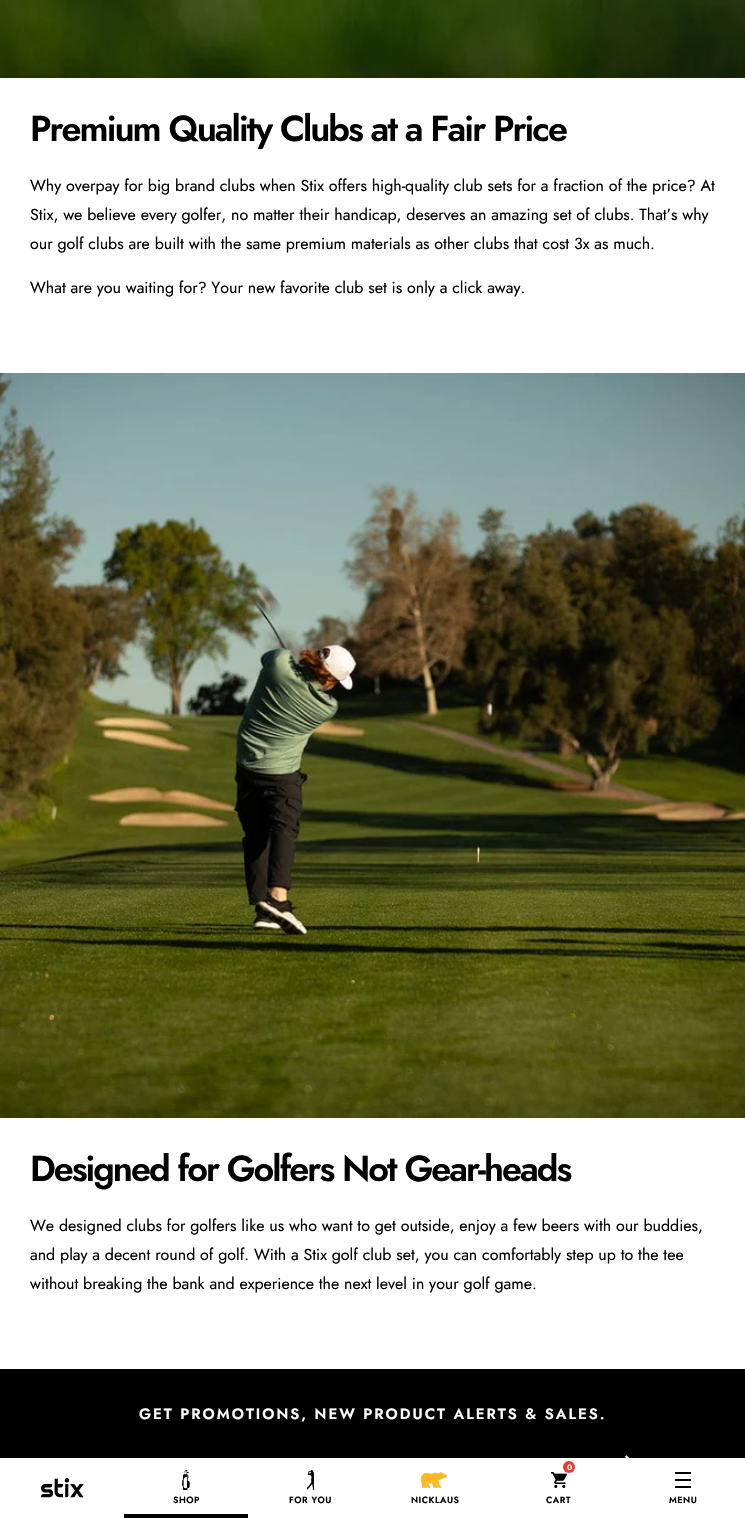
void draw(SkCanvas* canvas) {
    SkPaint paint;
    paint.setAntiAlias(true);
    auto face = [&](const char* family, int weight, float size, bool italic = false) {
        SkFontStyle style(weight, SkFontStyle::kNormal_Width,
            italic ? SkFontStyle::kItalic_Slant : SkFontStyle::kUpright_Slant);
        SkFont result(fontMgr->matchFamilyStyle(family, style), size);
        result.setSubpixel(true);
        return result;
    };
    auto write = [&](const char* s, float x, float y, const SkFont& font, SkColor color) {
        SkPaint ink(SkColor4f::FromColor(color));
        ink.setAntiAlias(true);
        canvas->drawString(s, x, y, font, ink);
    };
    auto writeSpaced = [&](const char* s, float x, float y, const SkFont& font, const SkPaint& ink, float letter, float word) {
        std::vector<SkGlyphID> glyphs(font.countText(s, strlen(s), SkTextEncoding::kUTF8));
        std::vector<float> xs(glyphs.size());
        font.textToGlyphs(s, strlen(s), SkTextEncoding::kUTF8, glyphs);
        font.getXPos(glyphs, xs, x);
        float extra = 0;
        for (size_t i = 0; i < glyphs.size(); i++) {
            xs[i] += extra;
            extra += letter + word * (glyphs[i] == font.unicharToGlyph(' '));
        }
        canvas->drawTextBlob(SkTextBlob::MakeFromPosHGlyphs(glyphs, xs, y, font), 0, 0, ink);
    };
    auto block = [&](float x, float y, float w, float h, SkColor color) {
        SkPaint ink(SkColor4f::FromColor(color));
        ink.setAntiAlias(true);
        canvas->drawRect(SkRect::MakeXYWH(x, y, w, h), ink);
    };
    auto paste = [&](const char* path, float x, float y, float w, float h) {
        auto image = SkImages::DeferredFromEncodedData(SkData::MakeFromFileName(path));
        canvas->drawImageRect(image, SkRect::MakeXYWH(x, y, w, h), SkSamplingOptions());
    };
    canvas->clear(SK_ColorWHITE);
    paste("pic1.png", 0, 0, 745, 78);
    auto kFont1 = face("Jost", 600, 36);
    paint.setColor(SK_ColorBLACK);
    writeSpaced("Premium Quality Clubs at a Fair Price", 30, 141, kFont1, paint, -2, 0);
    auto kFont2 = face("Jost", 400, 16);
    write("Why overpay for big brand clubs when Stix offers high-quality club sets for a fraction of the price? At", 30, 191, kFont2, SK_ColorBLACK);
    write("Stix, we believe every golfer, no matter their handicap, deserves an amazing set of clubs. That’s why", 30, 220, kFont2, SK_ColorBLACK);
    write("our golf clubs are built with the same premium materials as other clubs that cost 3x as much.", 30, 249, kFont2, SK_ColorBLACK);
    write("What are you waiting for? Your new favorite club set is only a click away.", 30, 293, kFont2, SK_ColorBLACK);
    paste("pic2.png", 0, 373, 745, 745);
    writeSpaced("Designed for Golfers Not Gear-heads", 30, 1181, kFont1, paint, -2, 0);
    write("We designed clubs for golfers like us who want to get outside, enjoy a few beers with our buddies,", 30, 1231, kFont2, SK_ColorBLACK);
    write("and play a decent round of golf. With a Stix golf club set, you can comfortably step up to the tee", 30, 1260, kFont2, SK_ColorBLACK);
    write("without breaking the bank and experience the next level in your golf game.", 30, 1289, kFont2, SK_ColorBLACK);
    block(0, 1369, 745, 89, SK_ColorBLACK);
    auto kFont3 = face("Jost", 600, 15);
    paint.setColor(SK_ColorWHITE);
    writeSpaced("GET PROMOTIONS, NEW PRODUCT ALERTS & SALES.", 139, 1419, kFont3, paint, 2, 0);
    paint.setStyle(SkPaint::kStroke_Style);
    paint.setStrokeWidth(2.3f);
    canvas->drawPath(SkPathBuilder().moveTo(625.5f, 1456).lineTo(631.5f, 1461.5f).lineTo(625.5f, 1467).detach(), paint);
    paint.setStyle(SkPaint::kFill_Style);
    paint.setColor(SkColorSetARGB(64, 0, 0, 0));
    paint.setMaskFilter(SkMaskFilter::MakeBlur(kNormal_SkBlurStyle, 5));
    canvas->drawRect(SkRect::MakeXYWH(5, 1460, 735, 50), paint);
    paint.setMaskFilter(nullptr);
    block(0, 1458, 745, 60, SK_ColorWHITE);
    paste("pic3.png", 41, 1478, 43, 20);
    paste("pic4.png", 551, 1472, 16, 16);
    paint.setColor(SkColorSetRGB(228, 61, 48));
    canvas->drawCircle(569, 1467, 6, paint);
    auto kFont4 = face("Jost", 600, 8);
    write("0", 567, 1470, kFont4, SK_ColorWHITE);
    auto kFont5 = face("Jost", 600, 9);
    paint.setColor(SK_ColorBLACK);
    writeSpaced("CART", 546, 1503, kFont5, paint, 0.5f, 0);
    block(124, 1514, 124, 4, SK_ColorBLACK);
    paste("pic5.png", 182, 1470, 8, 20);
    writeSpaced("SHOP", 173, 1503, kFont5, paint, 0.5f, 0);
    paste("pic6.png", 307, 1470, 7, 20);
    writeSpaced("FOR YOU", 289, 1503, kFont5, paint, 0.5f, 0);
    paste("pic7.png", 421, 1472, 26, 16);
    writeSpaced("NICKLAUS", 411, 1503, kFont5, paint, 0.5f, 0);
    block(675, 1472, 16, 2, SK_ColorBLACK);
    block(675, 1479, 16, 2, SK_ColorBLACK);
    block(675, 1486, 16, 2, SK_ColorBLACK);
    writeSpaced("MENU", 669, 1503, kFont5, paint, 0.5f, 0);
}
